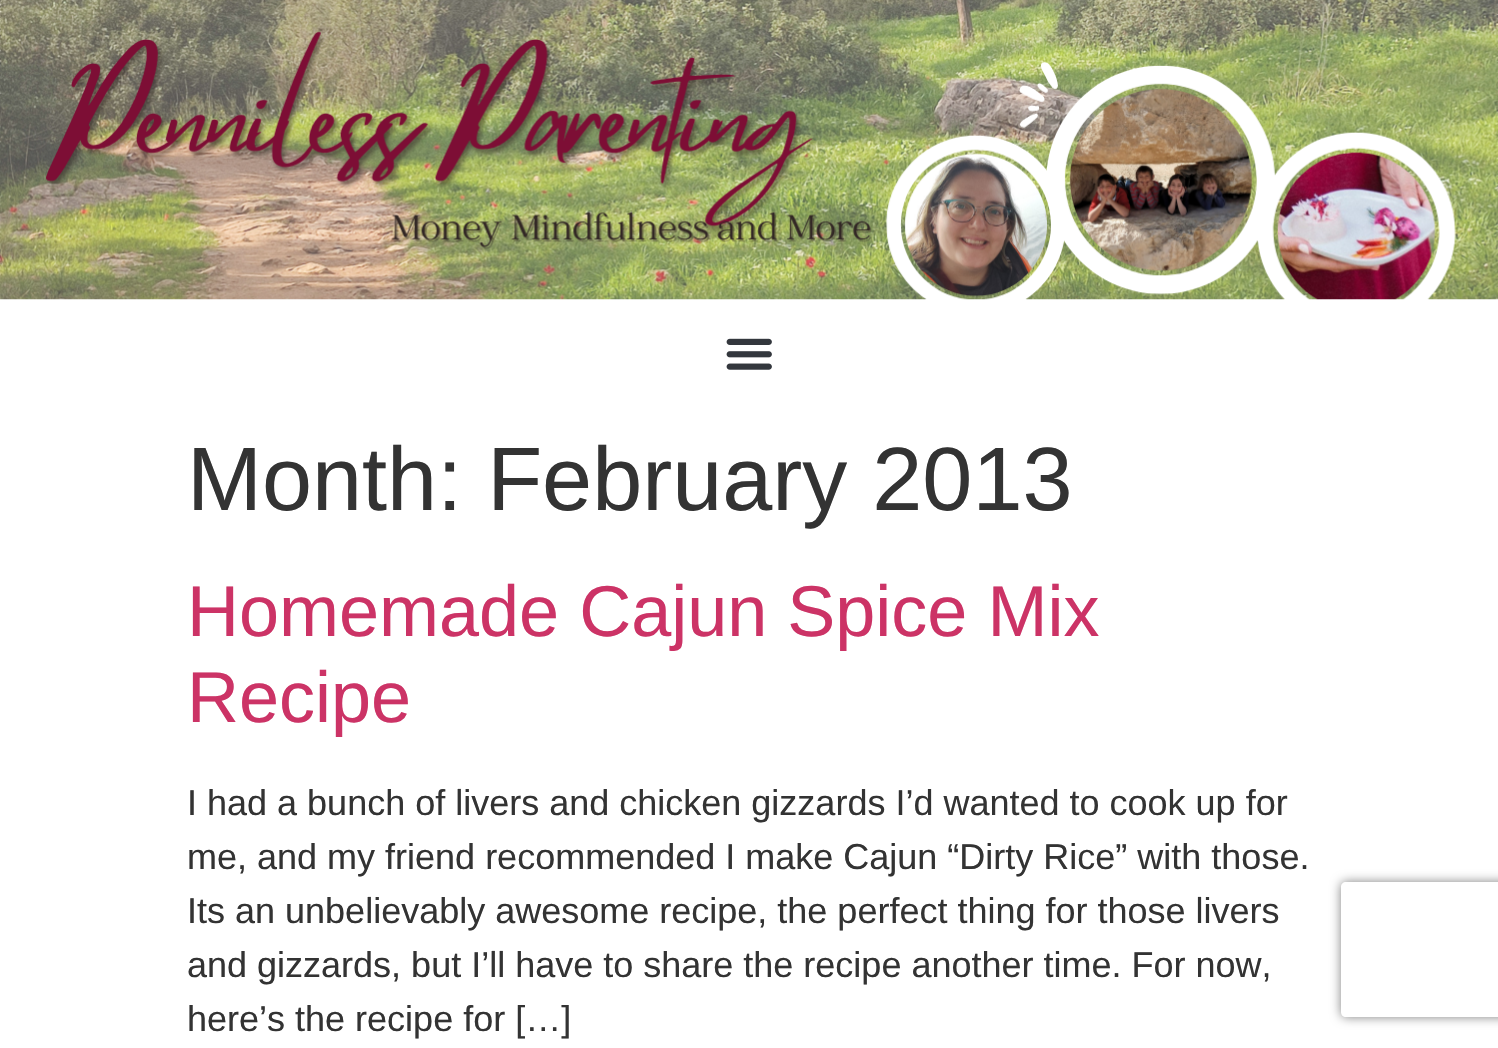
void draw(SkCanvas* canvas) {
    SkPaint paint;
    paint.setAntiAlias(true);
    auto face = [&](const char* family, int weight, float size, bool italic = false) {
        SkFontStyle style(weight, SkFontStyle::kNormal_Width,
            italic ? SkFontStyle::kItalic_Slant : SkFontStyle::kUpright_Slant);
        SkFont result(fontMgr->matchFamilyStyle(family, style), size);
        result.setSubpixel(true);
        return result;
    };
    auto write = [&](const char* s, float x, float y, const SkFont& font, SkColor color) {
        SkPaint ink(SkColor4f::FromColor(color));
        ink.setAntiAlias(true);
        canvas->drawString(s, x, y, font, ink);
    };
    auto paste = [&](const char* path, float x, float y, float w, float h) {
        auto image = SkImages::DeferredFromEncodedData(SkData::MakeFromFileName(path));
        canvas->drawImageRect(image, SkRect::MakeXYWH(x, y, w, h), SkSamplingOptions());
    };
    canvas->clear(SK_ColorWHITE);
    paste("pic1.png", 0, 0, 1498, 300);
    paste("pic2.png", 726, 338, 46, 32);
    auto kFont1 = face("Liberation Sans", 400, 90);
    write("Month: February 2013", 187, 510, kFont1, SkColorSetRGB(51, 51, 51));
    auto kFont2 = face("Liberation Sans", 400, 72);
    write("Homemade Cajun Spice Mix", 187, 636, kFont2, SkColorSetRGB(204, 51, 102));
    write("Recipe", 187, 722, kFont2, SkColorSetRGB(204, 51, 102));
    auto kFont3 = face("Liberation Sans", 400, 36);
    write("I had a bunch of livers and chicken gizzards I’d wanted to cook up for", 187, 815, kFont3, SkColorSetRGB(51, 51, 51));
    write("me, and my friend recommended I make Cajun “Dirty Rice” with those.", 187, 869, kFont3, SkColorSetRGB(51, 51, 51));
    write("Its an unbelievably awesome recipe, the perfect thing for those livers", 187, 923, kFont3, SkColorSetRGB(51, 51, 51));
    write("and gizzards, but I’ll have to share the recipe another time. For now,", 187, 977, kFont3, SkColorSetRGB(51, 51, 51));
    write("here’s the recipe for […]", 187, 1031, kFont3, SkColorSetRGB(51, 51, 51));
    canvas->save();
    canvas->clipPath(SkPathBuilder(SkPathFillType::kEvenOdd).moveTo(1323, 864).lineTo(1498, 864).lineTo(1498, 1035).lineTo(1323, 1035).close().moveTo(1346, 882).lineTo(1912, 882).cubicTo(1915, 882, 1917, 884, 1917, 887).lineTo(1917, 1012).cubicTo(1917, 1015, 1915, 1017, 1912, 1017).lineTo(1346, 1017).cubicTo(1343, 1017, 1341, 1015, 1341, 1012).lineTo(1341, 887).cubicTo(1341, 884, 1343, 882, 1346, 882).close().detach(), true);
    paint.setColor(SkColorSetRGB(128, 128, 128));
    paint.setMaskFilter(SkMaskFilter::MakeBlur(kNormal_SkBlurStyle, 5.5f));
    canvas->drawRoundRect(SkRect::MakeXYWH(1341, 882, 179, 135), 5, 5, paint);
    paint.setMaskFilter(nullptr);
    canvas->restore();
}
